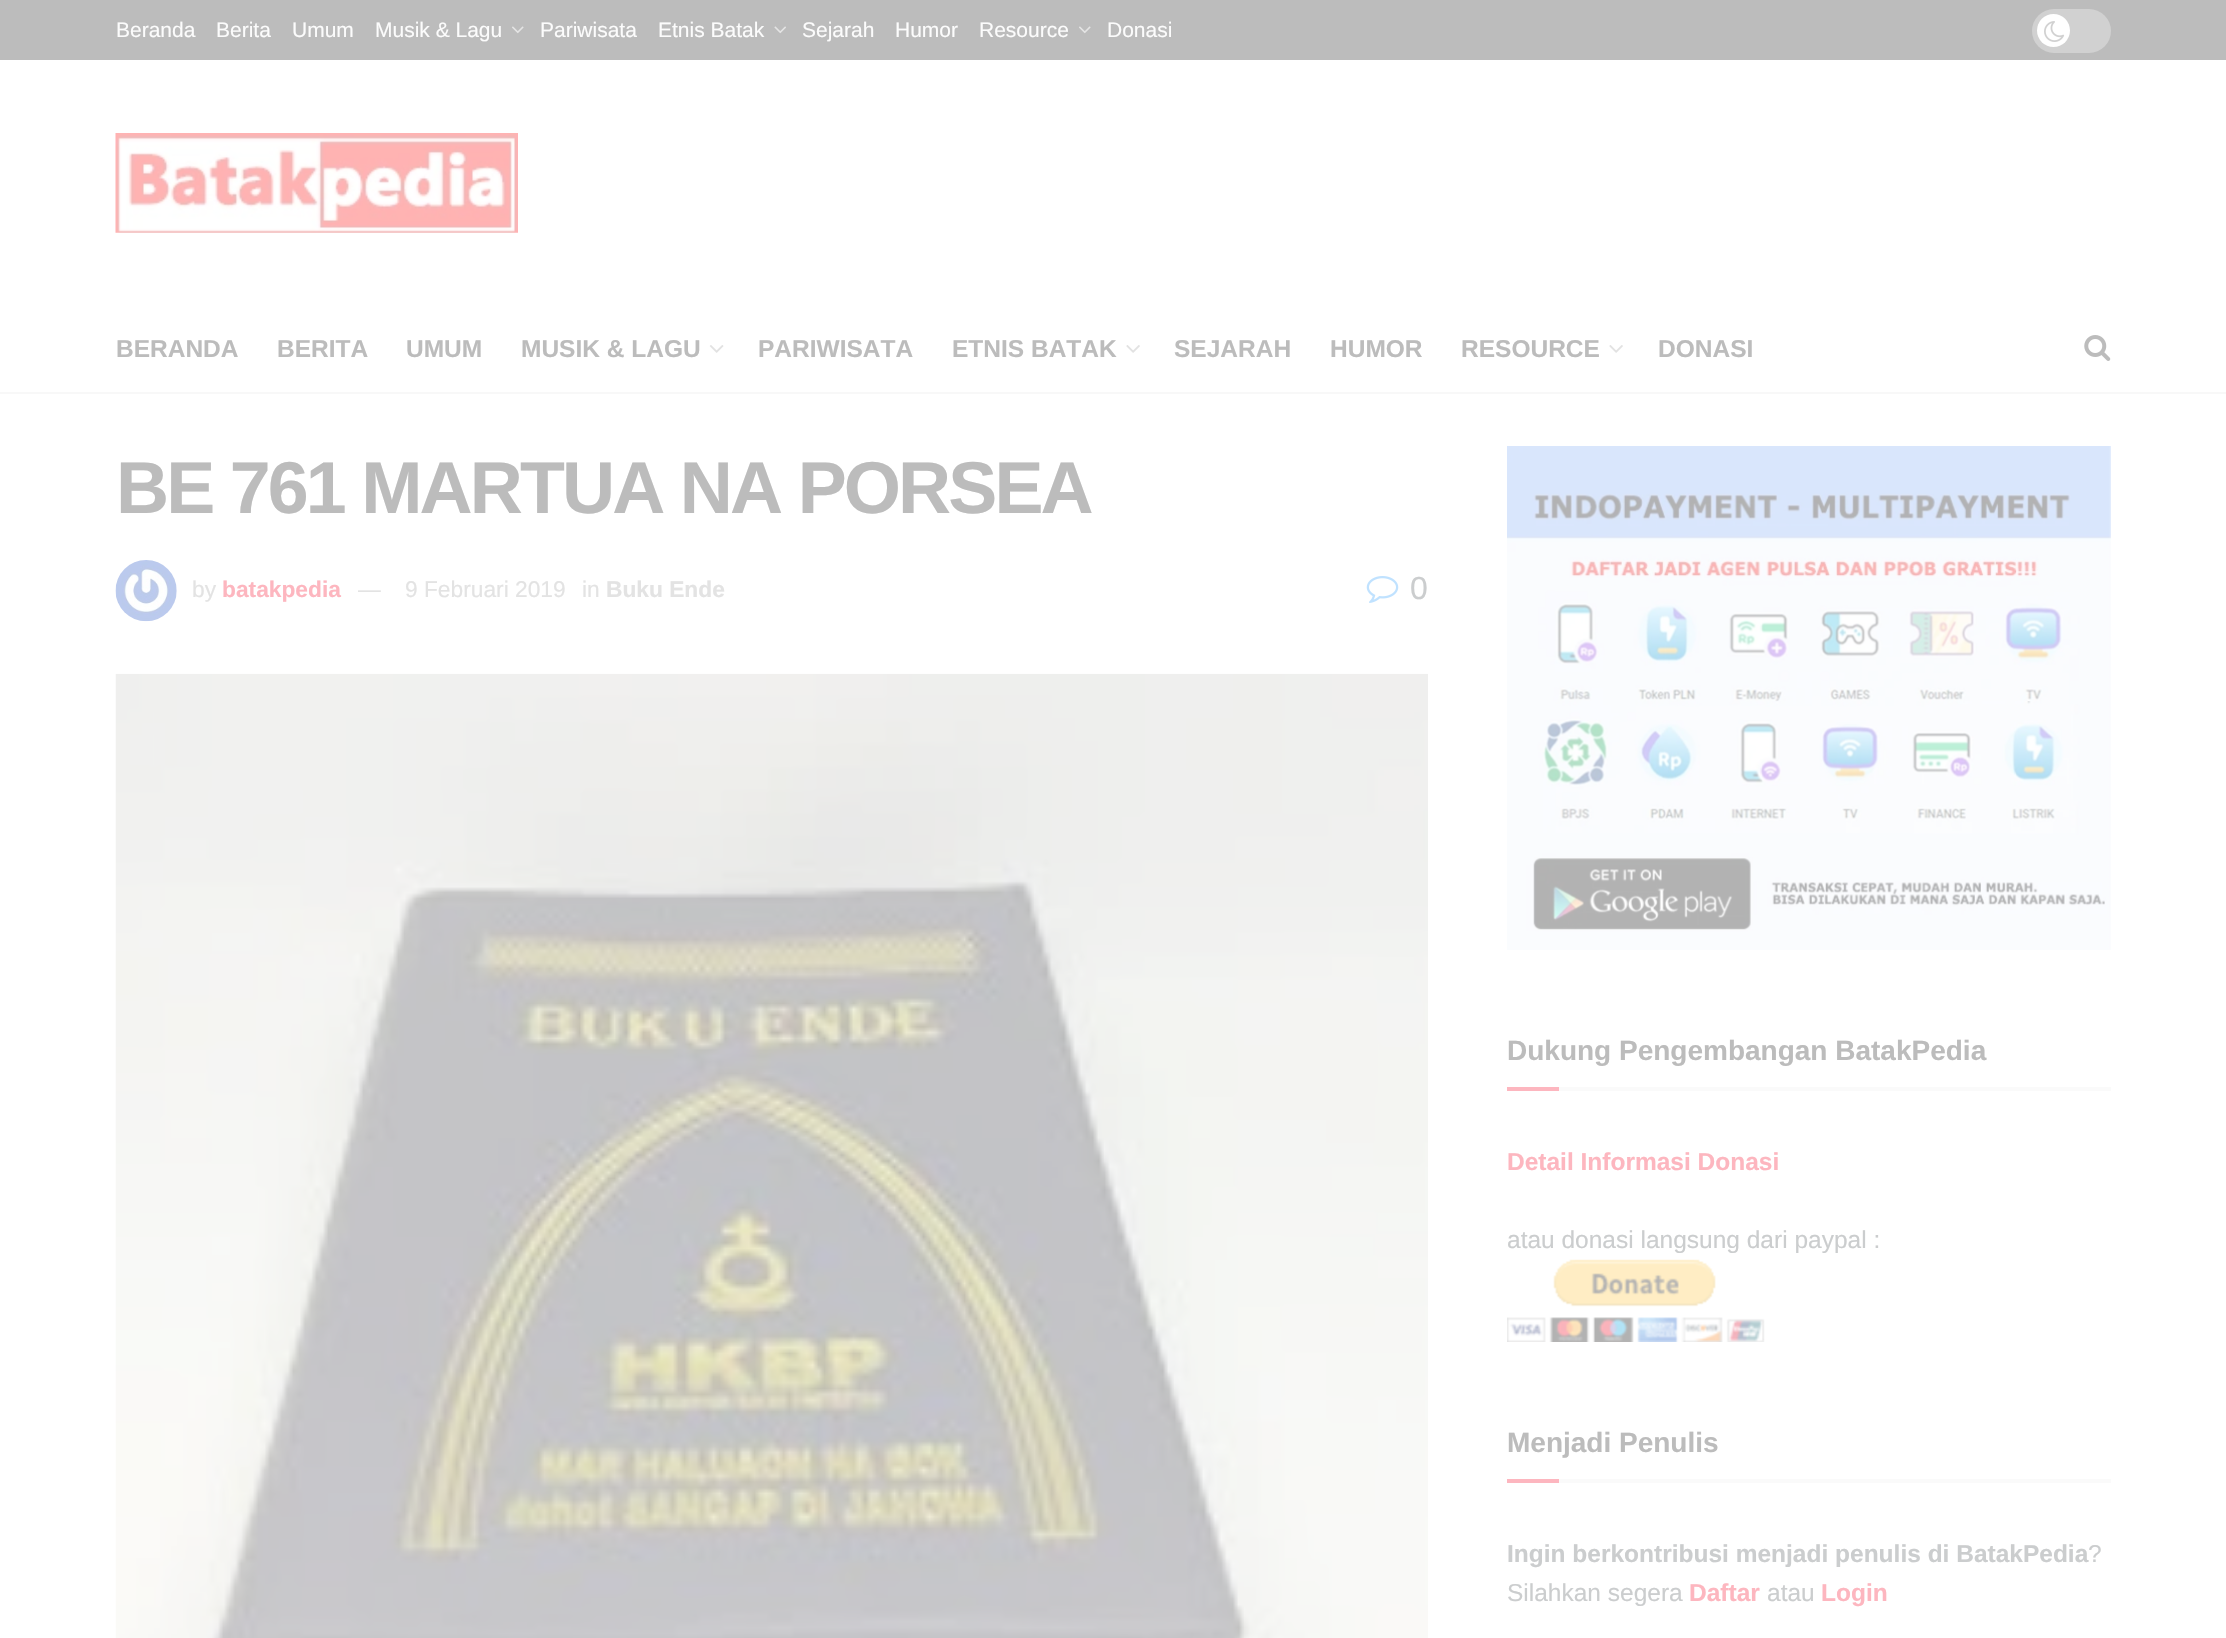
void draw(SkCanvas* canvas) {
    SkPaint paint;
    paint.setAntiAlias(true);
    auto face = [&](const char* family, int weight, float size, bool italic = false) {
        SkFontStyle style(weight, SkFontStyle::kNormal_Width,
            italic ? SkFontStyle::kItalic_Slant : SkFontStyle::kUpright_Slant);
        SkFont result(fontMgr->matchFamilyStyle(family, style), size);
        result.setSubpixel(true);
        return result;
    };
    auto write = [&](const char* s, float x, float y, const SkFont& font, SkColor color) {
        SkPaint ink(SkColor4f::FromColor(color));
        ink.setAntiAlias(true);
        canvas->drawString(s, x, y, font, ink);
    };
    auto writeSpaced = [&](const char* s, float x, float y, const SkFont& font, const SkPaint& ink, float letter, float word) {
        std::vector<SkGlyphID> glyphs(font.countText(s, strlen(s), SkTextEncoding::kUTF8));
        std::vector<float> xs(glyphs.size());
        font.textToGlyphs(s, strlen(s), SkTextEncoding::kUTF8, glyphs);
        font.getXPos(glyphs, xs, x);
        float extra = 0;
        for (size_t i = 0; i < glyphs.size(); i++) {
            xs[i] += extra;
            extra += letter + word * (glyphs[i] == font.unicharToGlyph(' '));
        }
        canvas->drawTextBlob(SkTextBlob::MakeFromPosHGlyphs(glyphs, xs, y, font), 0, 0, ink);
    };
    auto block = [&](float x, float y, float w, float h, SkColor color) {
        SkPaint ink(SkColor4f::FromColor(color));
        ink.setAntiAlias(true);
        canvas->drawRect(SkRect::MakeXYWH(x, y, w, h), ink);
    };
    auto card = [&](float x, float y, float w, float h, float radius, SkColor color) {
        SkPaint ink(SkColor4f::FromColor(color));
        ink.setAntiAlias(true);
        canvas->drawRoundRect(SkRect::MakeXYWH(x, y, w, h), radius, radius, ink);
    };
    auto paste = [&](const char* path, float x, float y, float w, float h) {
        auto image = SkImages::DeferredFromEncodedData(SkData::MakeFromFileName(path));
        canvas->drawImageRect(image, SkRect::MakeXYWH(x, y, w, h), SkSamplingOptions());
    };
    canvas->clear(SK_ColorWHITE);
    block(0, 0, 2226, 60, SkColorSetRGB(188, 188, 188));
    auto kFont1 = face("Liberation Sans", 400, 21);
    write("Beranda", 116, 37, kFont1, SkColorSetRGB(252, 252, 252));
    write("Berita", 216, 37, kFont1, SkColorSetRGB(252, 252, 252));
    write("Umum", 292, 37, kFont1, SkColorSetRGB(252, 252, 252));
    write("Musik & Lagu", 375, 37, kFont1, SkColorSetRGB(252, 252, 252));
    paste("pic1.png", 512, 26, 12, 8);
    write("Pariwisata", 540, 37, kFont1, SkColorSetRGB(252, 252, 252));
    write("Etnis Batak", 658, 37, kFont1, SkColorSetRGB(252, 252, 252));
    paste("pic2.png", 774, 26, 12, 8);
    write("Sejarah", 802, 37, kFont1, SkColorSetRGB(252, 252, 252));
    write("Humor", 895, 37, kFont1, SkColorSetRGB(252, 252, 252));
    write("Resource", 979, 37, kFont1, SkColorSetRGB(252, 252, 252));
    paste("pic1.png", 1079, 26, 12, 8);
    write("Donasi", 1107, 37, kFont1, SkColorSetRGB(252, 252, 252));
    card(2032, 9, 79, 44, 22, SkColorSetRGB(209, 209, 209));
    paint.setColor(SK_ColorWHITE);
    canvas->drawCircle(2053.5f, 30.5f, 16.5f, paint);
    paste("pic3.png", 2044, 21, 21, 21);
    paste("pic4.png", 115, 133, 403, 100);
    block(0, 392, 2226, 2, SkColorSetRGB(248, 248, 248));
    auto kFont2 = face("Liberation Sans", 700, 24.5f);
    write("BERANDA", 116, 357, kFont2, SkColorSetRGB(188, 188, 188));
    write("BERITA", 277, 357, kFont2, SkColorSetRGB(188, 188, 188));
    write("UMUM", 406, 357, kFont2, SkColorSetRGB(188, 188, 188));
    write("MUSIK & LAGU", 521, 357, kFont2, SkColorSetRGB(188, 188, 188));
    paste("pic5.png", 709, 345, 15, 8);
    write("PARIWISATA", 758, 357, kFont2, SkColorSetRGB(188, 188, 188));
    write("ETNIS BATAK", 952, 357, kFont2, SkColorSetRGB(188, 188, 188));
    paste("pic6.png", 1126, 345, 14, 8);
    write("SEJARAH", 1174, 357, kFont2, SkColorSetRGB(188, 188, 188));
    write("HUMOR", 1330, 357, kFont2, SkColorSetRGB(188, 188, 188));
    write("RESOURCE", 1461, 357, kFont2, SkColorSetRGB(188, 188, 188));
    paste("pic6.png", 1609, 345, 14, 8);
    write("DONASI", 1658, 357, kFont2, SkColorSetRGB(188, 188, 188));
    paste("pic7.png", 2084, 335, 27, 26);
    auto kFont3 = face("Liberation Sans", 700, 73.5f);
    paint.setColor(SkColorSetRGB(188, 188, 188));
    writeSpaced("BE 761 MARTUA NA PORSEA", 116, 513, kFont3, paint, -2.9f, 0);
    paste("pic8.png", 115, 560, 62, 62);
    auto kFont4 = face("Liberation Sans", 400, 22.75f);
    write("by", 192, 597, kFont4, SkColorSetRGB(227, 227, 227));
    auto kFont5 = face("Liberation Sans", 700, 22.75f);
    write("batakpedia", 222, 597, kFont5, SkColorSetRGB(253, 182, 191));
    write("—", 358, 597, kFont4, SkColorSetRGB(227, 227, 227));
    write("9 Februari 2019", 405, 597, kFont4, SkColorSetRGB(227, 227, 227));
    write("in", 582, 597, kFont4, SkColorSetRGB(227, 227, 227));
    write("Buku Ende", 606, 597, kFont5, SkColorSetRGB(227, 227, 227));
    paste("pic9.png", 1366, 576, 33, 27);
    auto kFont6 = face("Liberation Sans", 400, 32);
    write("0", 1410, 599, kFont6, SkColorSetRGB(203, 205, 206));
    paste("pic10.png", 115, 673, 1313, 965);
    paste("pic11.png", 1507, 446, 604, 504);
    block(1559, 1087, 552, 4, SkColorSetRGB(250, 250, 250));
    auto kFont7 = face("Liberation Sans", 700, 28);
    write("Dukung Pengembangan BatakPedia", 1507, 1060, kFont7, SkColorSetRGB(188, 188, 188));
    block(1507, 1087, 52, 4, SkColorSetRGB(253, 182, 191));
    write("Detail Informasi Donasi", 1507, 1170, kFont2, SkColorSetRGB(253, 182, 191));
    auto kFont8 = face("Liberation Sans", 400, 24.5f);
    write("atau donasi langsung dari paypal :", 1507, 1248, kFont8, SkColorSetRGB(203, 205, 206));
    paste("pic12.png", 1507, 1259, 258, 83);
    block(1559, 1479, 552, 4, SkColorSetRGB(250, 250, 250));
    write("Menjadi Penulis", 1507, 1452, kFont7, SkColorSetRGB(188, 188, 188));
    block(1507, 1479, 52, 4, SkColorSetRGB(253, 182, 191));
    write("Ingin berkontribusi menjadi penulis di BatakPedia", 1507, 1562, kFont2, SkColorSetRGB(203, 205, 206));
    write("?", 2088, 1562, kFont8, SkColorSetRGB(203, 205, 206));
    write("Silahkan segera", 1507, 1601, kFont8, SkColorSetRGB(203, 205, 206));
    write("Daftar", 1689, 1601, kFont2, SkColorSetRGB(253, 182, 191));
    write("atau", 1767, 1601, kFont8, SkColorSetRGB(203, 205, 206));
    write("Login", 1821, 1601, kFont2, SkColorSetRGB(253, 182, 191));
}
